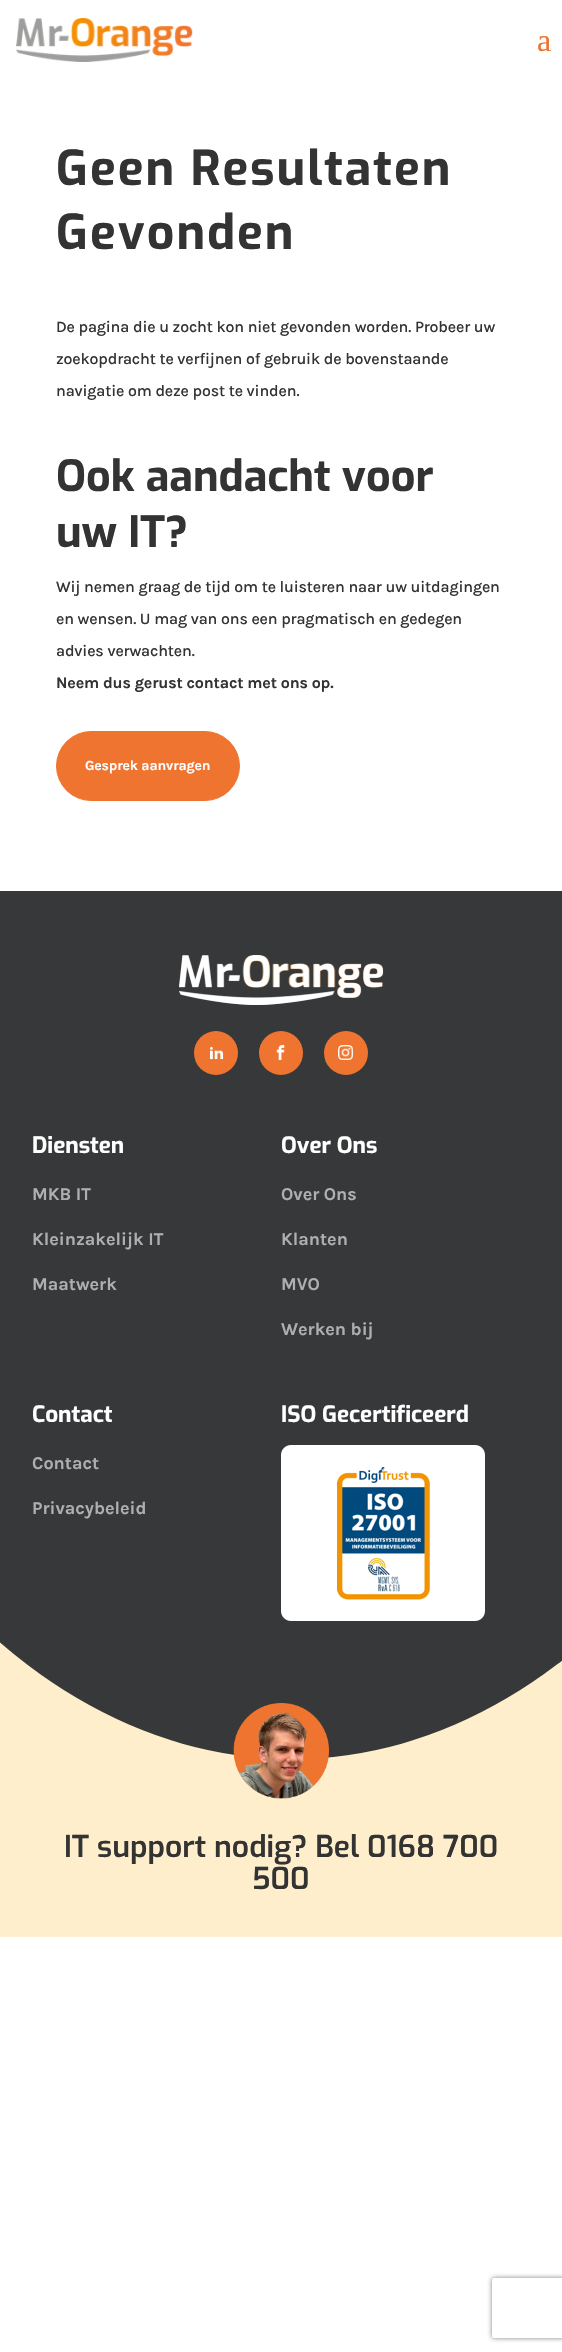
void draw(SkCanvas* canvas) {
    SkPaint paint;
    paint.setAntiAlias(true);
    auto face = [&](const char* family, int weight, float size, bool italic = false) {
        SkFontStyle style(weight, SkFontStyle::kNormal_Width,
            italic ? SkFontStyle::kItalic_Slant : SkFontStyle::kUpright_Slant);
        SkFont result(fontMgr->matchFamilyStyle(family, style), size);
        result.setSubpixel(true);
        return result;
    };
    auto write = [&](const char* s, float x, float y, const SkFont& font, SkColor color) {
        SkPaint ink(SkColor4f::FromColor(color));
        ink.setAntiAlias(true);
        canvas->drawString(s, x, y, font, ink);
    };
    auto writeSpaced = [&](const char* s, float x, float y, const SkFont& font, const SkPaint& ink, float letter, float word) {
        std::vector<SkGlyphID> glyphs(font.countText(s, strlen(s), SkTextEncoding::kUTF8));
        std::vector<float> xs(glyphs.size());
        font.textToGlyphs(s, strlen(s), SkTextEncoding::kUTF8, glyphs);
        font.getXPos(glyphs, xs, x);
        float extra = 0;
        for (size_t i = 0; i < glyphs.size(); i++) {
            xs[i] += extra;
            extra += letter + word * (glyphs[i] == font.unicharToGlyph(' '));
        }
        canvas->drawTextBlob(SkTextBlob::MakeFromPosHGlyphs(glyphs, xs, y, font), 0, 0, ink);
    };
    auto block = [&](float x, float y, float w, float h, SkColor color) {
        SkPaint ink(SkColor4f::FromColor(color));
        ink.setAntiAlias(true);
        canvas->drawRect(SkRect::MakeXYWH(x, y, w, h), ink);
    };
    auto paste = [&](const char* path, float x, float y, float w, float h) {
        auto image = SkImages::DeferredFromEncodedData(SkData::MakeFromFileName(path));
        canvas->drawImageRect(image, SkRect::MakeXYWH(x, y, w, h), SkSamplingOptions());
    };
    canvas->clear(SK_ColorWHITE);
    paste("pic1.png", 16, 18, 177, 44);
    auto kFont1 = face("Liberation Serif", 400, 32);
    write("a", 537, 51, kFont1, SkColorSetRGB(238, 116, 47));
    auto kFont2 = face("Exo", 700, 48);
    paint.setColor(SkColorSetRGB(51, 51, 51));
    writeSpaced("Geen Resultaten", 56, 185, kFont2, paint, 2, 0);
    writeSpaced("Gevonden", 56, 249, kFont2, paint, 2, 0);
    auto kFont3 = face("Karla", 500, 16);
    writeSpaced("De pagina die u zocht kon niet gevonden worden. Probeer uw", 56, 332, kFont3, paint, -0.15f, 0);
    writeSpaced("zoekopdracht te verfijnen of gebruik de bovenstaande", 56, 364, kFont3, paint, -0.15f, 0);
    writeSpaced("navigatie om deze post te vinden.", 56, 396, kFont3, paint, -0.15f, 0);
    auto kFont4 = face("Exo", 700, 43);
    write("Ook aandacht voor", 56, 491, kFont4, SkColorSetRGB(51, 51, 51));
    write("uw IT?", 56, 547, kFont4, SkColorSetRGB(51, 51, 51));
    writeSpaced("Wij nemen graag de tijd om te luisteren naar uw uitdagingen", 56, 592, kFont3, paint, -0.15f, 0);
    writeSpaced("en wensen. U mag van ons een pragmatisch en gedegen", 56, 624, kFont3, paint, -0.15f, 0);
    writeSpaced("advies verwachten.", 56, 656, kFont3, paint, -0.15f, 0);
    auto kFont5 = face("Karla", 700, 16);
    writeSpaced("Neem dus gerust contact met ons op.", 56, 688, kFont5, paint, -0.15f, 0);
    paint.setColor(SkColorSetRGB(238, 116, 47));
    canvas->drawRoundRect(SkRect::MakeXYWH(56.5f, 731.5f, 183, 69), 34.5f, 34.5f, paint);
    paint.setStyle(SkPaint::kStroke_Style);
    paint.setStrokeWidth(1);
    canvas->drawRoundRect(SkRect::MakeXYWH(56.5f, 731.5f, 183, 69), 34.5f, 34.5f, paint);
    auto kFont6 = face("Karla", 700, 14);
    paint.setStyle(SkPaint::kFill_Style);
    paint.setColor(SK_ColorWHITE);
    writeSpaced("Gesprek aanvragen", 85, 770, kFont6, paint, -0.15f, 0);
    block(0, 891, 562, 740, SkColorSetRGB(55, 56, 57));
    paste("pic2.png", 179, 955, 205, 50);
    paint.setColor(SkColorSetRGB(238, 116, 47));
    canvas->drawCircle(216, 1053, 22, paint);
    paste("pic3.png", 210, 1046, 14, 14);
    canvas->drawCircle(281, 1053, 22, paint);
    paste("pic4.png", 276, 1045, 9, 15);
    canvas->drawCircle(346, 1053, 22, paint);
    paste("pic5.png", 338, 1045, 15, 15);
    auto kFont7 = face("Exo", 700, 22.5f);
    write("Diensten", 32, 1153, kFont7, SK_ColorWHITE);
    auto kFont8 = face("Karla", 700, 18);
    write("MKB IT", 32, 1200, kFont8, SkColorSetRGB(175, 175, 175));
    write("Kleinzakelijk IT", 32, 1245, kFont8, SkColorSetRGB(175, 175, 175));
    write("Maatwerk", 32, 1290, kFont8, SkColorSetRGB(175, 175, 175));
    write("Over Ons", 281, 1153, kFont7, SK_ColorWHITE);
    write("Over Ons", 281, 1200, kFont8, SkColorSetRGB(175, 175, 175));
    write("Klanten", 281, 1245, kFont8, SkColorSetRGB(175, 175, 175));
    write("MVO", 281, 1290, kFont8, SkColorSetRGB(175, 175, 175));
    write("Werken bij", 281, 1335, kFont8, SkColorSetRGB(175, 175, 175));
    write("Contact", 32, 1422, kFont7, SK_ColorWHITE);
    write("Contact", 32, 1469, kFont8, SkColorSetRGB(175, 175, 175));
    write("Privacybeleid", 32, 1514, kFont8, SkColorSetRGB(175, 175, 175));
    write("ISO Gecertificeerd", 281, 1422, kFont7, SK_ColorWHITE);
    paste("pic6.png", 281, 1445, 204, 176);
    block(0, 1642, 562, 295, SkColorSetRGB(255, 238, 204));
    canvas->save();
    canvas->clipRect(SkRect::MakeXYWH(0, 1631, 562, 306));
    paint.setColor(SkColorSetRGB(55, 56, 57));
    canvas->drawOval(SkRect::MakeXYWH(-270, 159, 1124, 1600), paint);
    canvas->restore();
    paste("pic7.png", 233, 1703, 96, 96);
    auto kFont9 = face("Exo", 600, 30);
    write("IT support nodig? Bel 0168 700", 64, 1857, kFont9, SkColorSetRGB(51, 51, 51));
    write("500", 252, 1889, kFont9, SkColorSetRGB(51, 51, 51));
    canvas->save();
    canvas->clipPath(SkPathBuilder(SkPathFillType::kEvenOdd).moveTo(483, 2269).lineTo(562, 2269).lineTo(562, 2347).lineTo(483, 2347).close().moveTo(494, 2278).lineTo(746, 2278).cubicTo(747, 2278, 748, 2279, 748, 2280).lineTo(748, 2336).cubicTo(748, 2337, 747, 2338, 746, 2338).lineTo(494, 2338).cubicTo(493, 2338, 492, 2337, 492, 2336).lineTo(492, 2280).cubicTo(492, 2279, 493, 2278, 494, 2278).close().detach(), true);
    paint.setColor(SkColorSetRGB(128, 128, 128));
    paint.setMaskFilter(SkMaskFilter::MakeBlur(kNormal_SkBlurStyle, 2.5f));
    canvas->drawRoundRect(SkRect::MakeXYWH(492, 2278, 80, 60), 2, 2, paint);
    paint.setMaskFilter(nullptr);
    canvas->restore();
}
